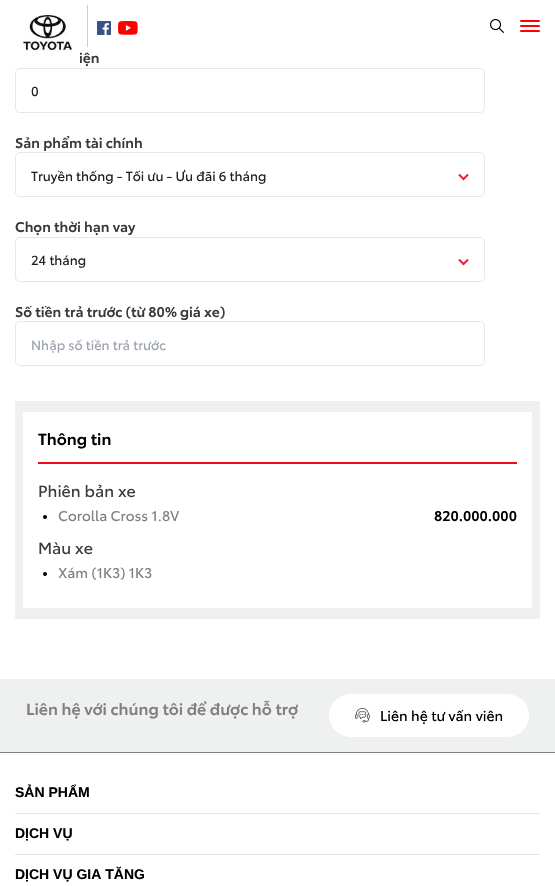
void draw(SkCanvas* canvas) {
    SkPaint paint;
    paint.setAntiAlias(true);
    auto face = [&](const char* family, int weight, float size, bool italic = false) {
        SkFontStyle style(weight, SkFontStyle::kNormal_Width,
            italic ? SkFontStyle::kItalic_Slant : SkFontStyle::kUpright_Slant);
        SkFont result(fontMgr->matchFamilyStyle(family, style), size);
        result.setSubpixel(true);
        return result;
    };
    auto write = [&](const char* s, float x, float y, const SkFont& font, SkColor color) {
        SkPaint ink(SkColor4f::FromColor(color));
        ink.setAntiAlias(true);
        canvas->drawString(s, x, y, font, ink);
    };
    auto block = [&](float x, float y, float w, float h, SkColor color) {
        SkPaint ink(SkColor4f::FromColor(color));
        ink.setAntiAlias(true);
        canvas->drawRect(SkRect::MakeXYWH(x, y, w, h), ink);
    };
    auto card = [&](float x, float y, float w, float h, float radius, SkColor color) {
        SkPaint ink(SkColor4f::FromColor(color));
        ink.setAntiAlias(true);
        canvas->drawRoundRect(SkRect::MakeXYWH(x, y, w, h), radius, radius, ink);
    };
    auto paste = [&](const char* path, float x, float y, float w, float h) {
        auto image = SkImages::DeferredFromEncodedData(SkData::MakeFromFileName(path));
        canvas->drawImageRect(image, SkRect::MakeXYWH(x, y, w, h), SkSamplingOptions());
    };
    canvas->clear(SK_ColorWHITE);
    auto kFont1 = face("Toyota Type", 600, 14);
    write("iện", 79, 63, kFont1, SkColorSetRGB(58, 58, 58));
    paste("pic1.png", 15, 10, 65, 55);
    block(87, 5, 1, 42, SkColorSetRGB(204, 204, 204));
    paste("pic2.png", 97, 21, 14, 14);
    paste("pic3.png", 118, 21, 20, 14);
    paste("pic4.png", 490, 19, 14, 14);
    card(520, 20, 20, 2, 1, SkColorSetRGB(255, 0, 0));
    card(520, 25, 20, 2, 1, SkColorSetRGB(255, 0, 0));
    card(520, 30, 20, 2, 1, SkColorSetRGB(255, 0, 0));
    paint.setStyle(SkPaint::kStroke_Style);
    paint.setStrokeWidth(1);
    paint.setColor(SkColorSetRGB(231, 231, 233));
    canvas->drawRoundRect(SkRect::MakeXYWH(15.5f, 68.5f, 469, 44), 4.5f, 4.5f, paint);
    auto kFont2 = face("Toyota Type", 400, 13);
    write("0", 31, 96, kFont2, SkColorSetRGB(32, 32, 32));
    write("Sản phẩm tài chính", 15, 148, kFont1, SkColorSetRGB(58, 58, 58));
    canvas->drawRoundRect(SkRect::MakeXYWH(15.5f, 152.5f, 469, 44), 4.5f, 4.5f, paint);
    write("Truyền thống - Tối ưu - Ưu đãi 6 tháng", 31, 181, kFont2, SkColorSetRGB(32, 32, 32));
    paint.setStrokeWidth(2);
    paint.setColor(SkColorSetRGB(244, 25, 57));
    canvas->drawPath(SkPathBuilder().moveTo(468, 174.5f).lineTo(463.5f, 179).lineTo(459, 174.5f).detach(), paint);
    write("Chọn thời hạn vay", 15, 232, kFont1, SkColorSetRGB(58, 58, 58));
    paint.setStrokeWidth(1);
    paint.setColor(SkColorSetRGB(231, 231, 233));
    canvas->drawRoundRect(SkRect::MakeXYWH(15.5f, 237.5f, 469, 44), 4.5f, 4.5f, paint);
    write("24 tháng", 31, 265, kFont2, SkColorSetRGB(32, 32, 32));
    paint.setStrokeWidth(2);
    paint.setColor(SkColorSetRGB(244, 25, 57));
    canvas->drawPath(SkPathBuilder().moveTo(468, 259.5f).lineTo(463.5f, 264).lineTo(459, 259.5f).detach(), paint);
    write("Số tiền trả trước (từ 80% giá xe)", 15, 317, kFont1, SkColorSetRGB(58, 58, 58));
    paint.setStrokeWidth(1);
    paint.setColor(SkColorSetRGB(231, 231, 233));
    canvas->drawRoundRect(SkRect::MakeXYWH(15.5f, 321.5f, 469, 44), 4.5f, 4.5f, paint);
    write("Nhập số tiền trả trước", 31, 350, kFont2, SkColorSetRGB(156, 163, 175));
    block(15, 401, 525, 218, SkColorSetRGB(239, 240, 240));
    block(23, 412, 509, 196, SK_ColorWHITE);
    auto kFont3 = face("Toyota Type", 600, 16);
    write("Thông tin", 38, 445, kFont3, SK_ColorBLACK);
    block(38, 462, 479, 2, SkColorSetRGB(235, 10, 30));
    auto kFont4 = face("Toyota Type", 400, 16);
    write("Phiên bản xe", 38, 497, kFont4, SkColorSetRGB(58, 58, 58));
    paint.setStyle(SkPaint::kFill_Style);
    paint.setColor(SK_ColorBLACK);
    canvas->drawCircle(45, 517, 2, paint);
    auto kFont5 = face("Toyota Type", 400, 14);
    write("Corolla Cross 1.8V", 58, 521, kFont5, SkColorSetRGB(128, 128, 128));
    write("820.000.000", 434, 521, kFont1, SK_ColorBLACK);
    write("Màu xe", 38, 554, kFont4, SkColorSetRGB(58, 58, 58));
    canvas->drawCircle(45, 574, 2, paint);
    write("Xám (1K3) 1K3", 58, 578, kFont5, SkColorSetRGB(128, 128, 128));
    block(0, 679, 555, 73, SkColorSetRGB(239, 240, 240));
    write("Liên hệ với chúng tôi để được hỗ trợ", 26, 715, kFont3, SkColorSetRGB(128, 128, 128));
    card(329, 694, 200, 43, 21.5f, SK_ColorWHITE);
    paste("pic5.png", 355, 708, 15, 15);
    write("Liên hệ tư vấn viên", 380, 721, kFont5, SK_ColorBLACK);
    block(0, 752, 555, 1, SkColorSetRGB(128, 128, 128));
    block(15, 813, 525, 1, SkColorSetRGB(228, 228, 228));
    auto kFont6 = face("Liberation Sans", 700, 14);
    write("SẢN PHẨM", 15, 797, kFont6, SK_ColorBLACK);
    block(15, 854, 525, 1, SkColorSetRGB(228, 228, 228));
    write("DỊCH VỤ", 15, 838, kFont6, SK_ColorBLACK);
    write("DỊCH VỤ GIA TĂNG", 15, 879, kFont6, SK_ColorBLACK);
}
